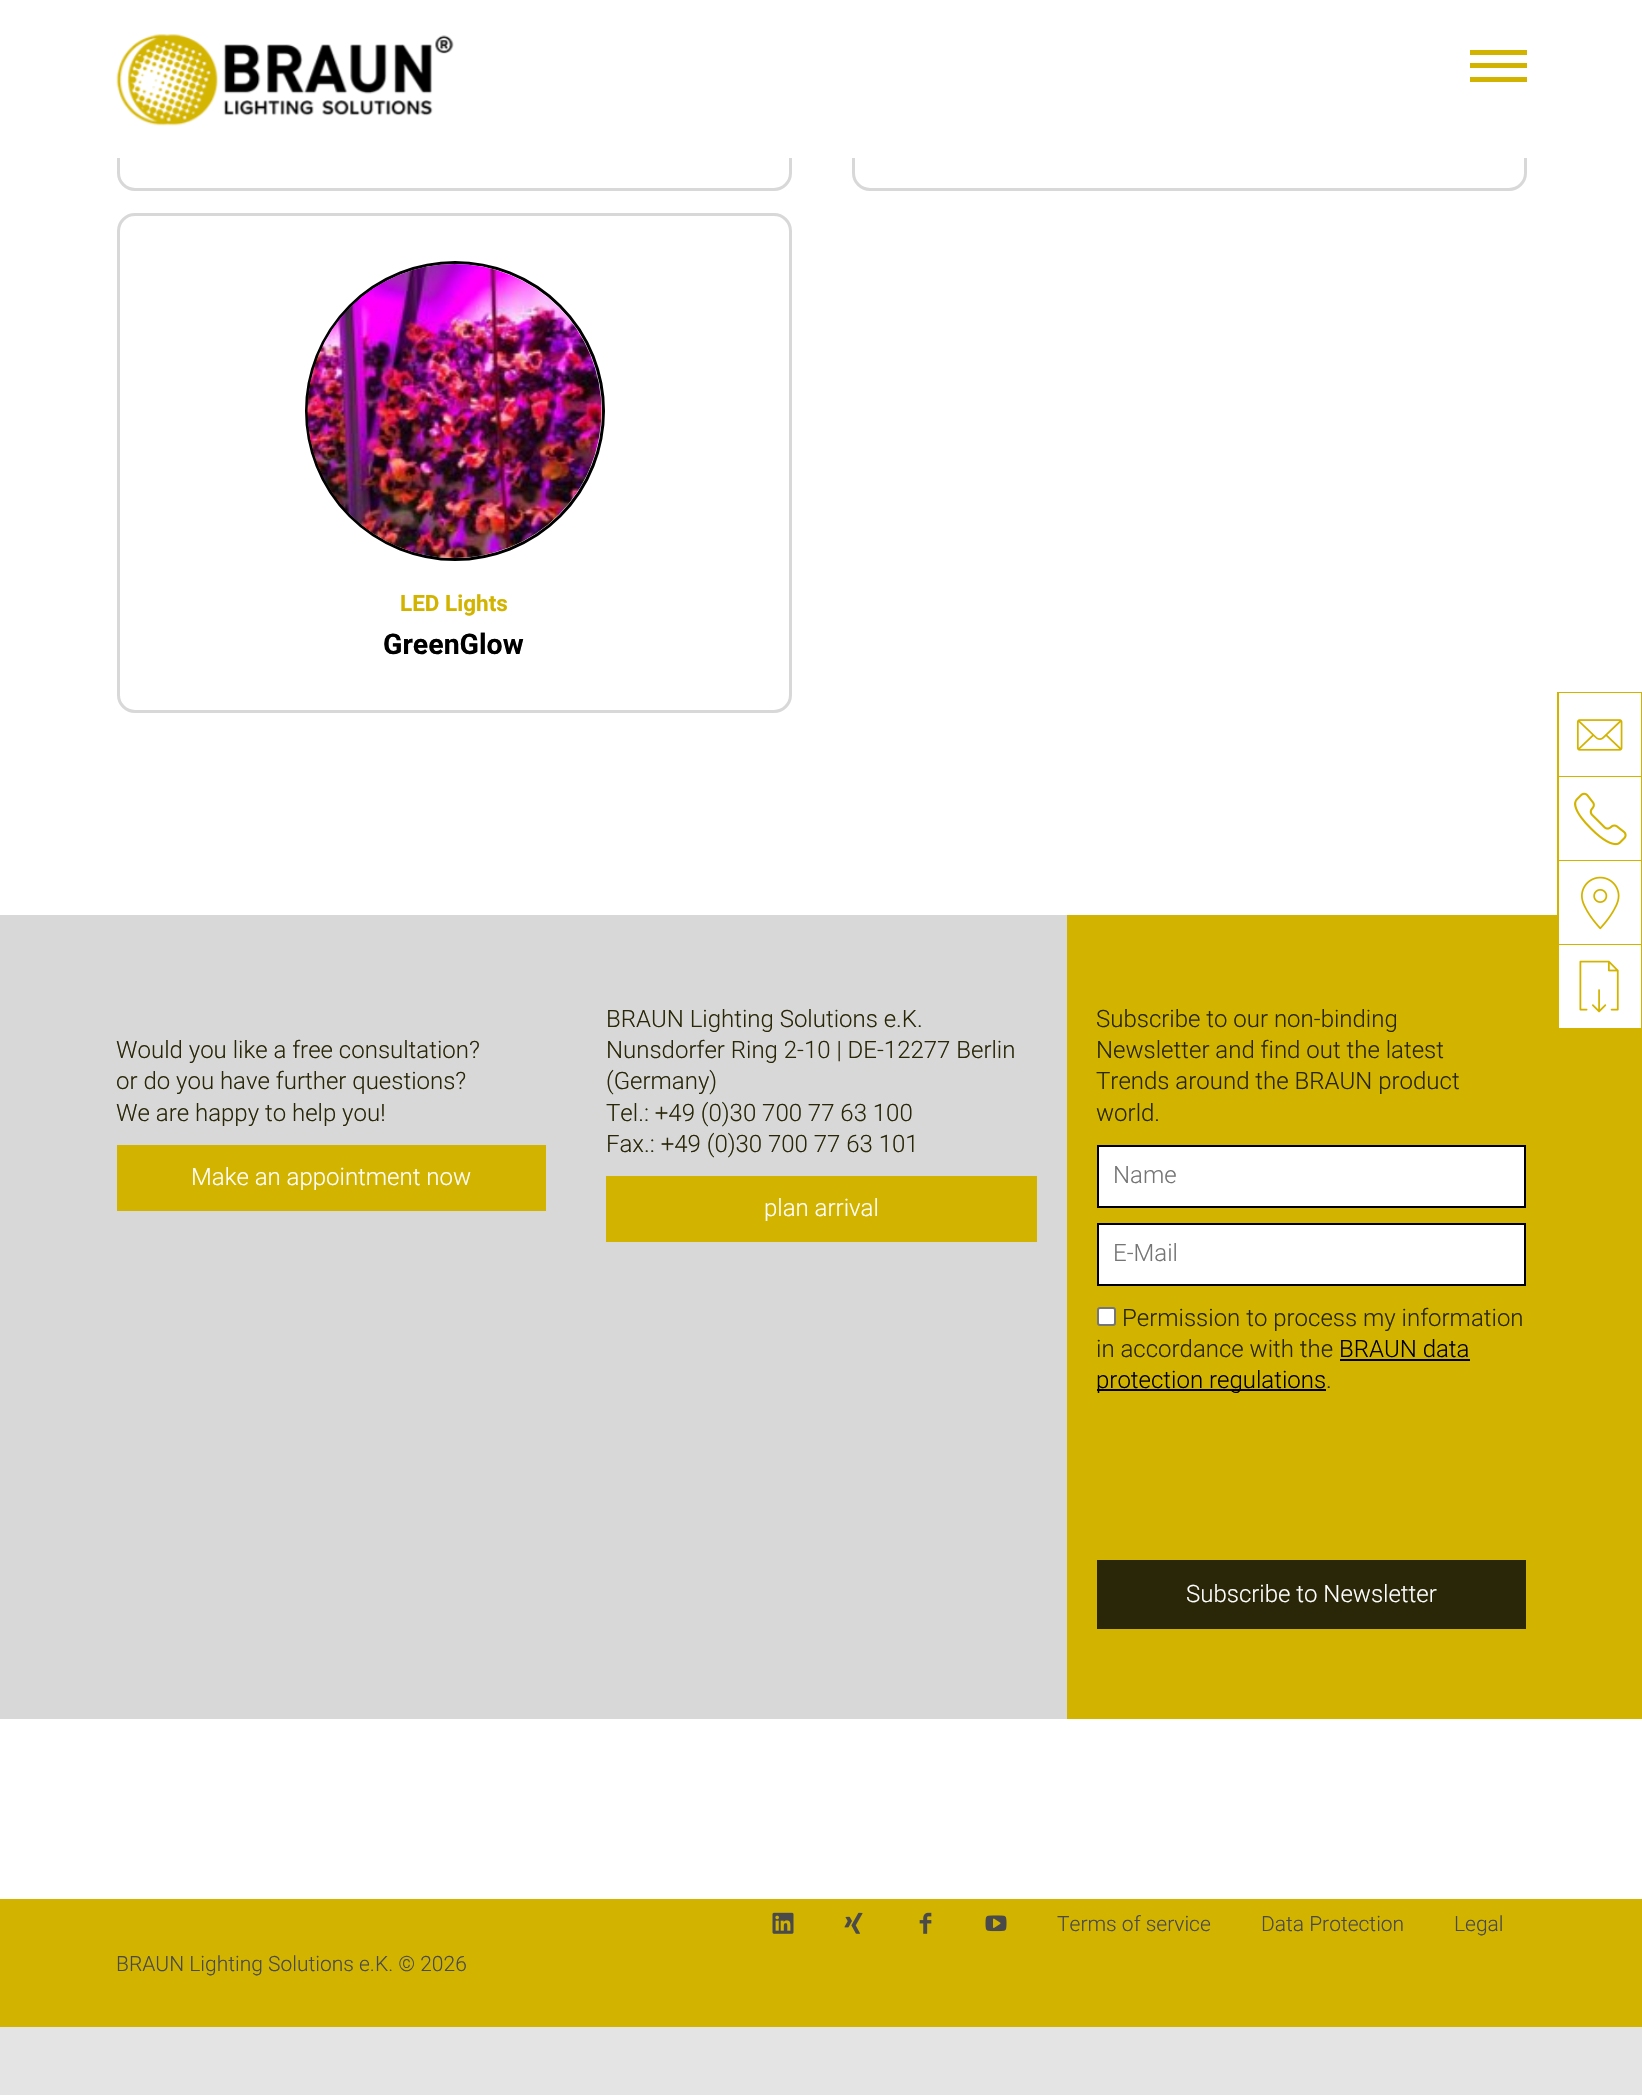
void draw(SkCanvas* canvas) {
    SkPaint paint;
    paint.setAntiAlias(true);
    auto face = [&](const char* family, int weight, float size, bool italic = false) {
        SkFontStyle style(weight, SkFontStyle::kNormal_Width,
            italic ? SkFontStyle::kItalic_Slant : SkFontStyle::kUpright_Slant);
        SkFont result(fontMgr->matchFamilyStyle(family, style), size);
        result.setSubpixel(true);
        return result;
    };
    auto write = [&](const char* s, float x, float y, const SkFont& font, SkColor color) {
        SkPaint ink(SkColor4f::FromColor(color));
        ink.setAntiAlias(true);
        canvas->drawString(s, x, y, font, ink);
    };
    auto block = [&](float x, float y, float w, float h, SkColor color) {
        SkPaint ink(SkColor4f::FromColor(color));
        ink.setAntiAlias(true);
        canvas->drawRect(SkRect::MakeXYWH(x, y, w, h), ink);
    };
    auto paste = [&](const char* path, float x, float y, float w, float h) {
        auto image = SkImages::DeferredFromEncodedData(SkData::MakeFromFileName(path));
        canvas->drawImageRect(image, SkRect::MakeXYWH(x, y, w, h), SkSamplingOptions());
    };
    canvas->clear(SkColorSetRGB(228, 228, 228));
    block(0, 158, 1642, 1741, SK_ColorWHITE);
    paint.setStyle(SkPaint::kStroke_Style);
    paint.setStrokeWidth(3);
    paint.setColor(SkColorSetRGB(216, 216, 216));
    canvas->drawRoundRect(SkRect::MakeXYWH(853.5f, -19.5f, 672, 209), 16.5f, 16.5f, paint);
    canvas->drawRoundRect(SkRect::MakeXYWH(118.5f, -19.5f, 672, 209), 16.5f, 16.5f, paint);
    block(0, 0, 1642, 158, SK_ColorWHITE);
    paste("pic1.png", 116, 34, 338, 92);
    block(1470, 50, 57, 5, SkColorSetRGB(210, 180, 0));
    block(1470, 63, 57, 5, SkColorSetRGB(210, 180, 0));
    block(1470, 77, 57, 5, SkColorSetRGB(210, 180, 0));
    canvas->drawRoundRect(SkRect::MakeXYWH(118.5f, 214.5f, 672, 497), 16.5f, 16.5f, paint);
    paint.setColor(SK_ColorBLACK);
    canvas->drawCircle(455, 411, 148.5f, paint);
    paste("pic2.png", 307, 264, 295, 294);
    auto kFont1 = face("Roboto", 700, 22.5f);
    write("LED Lights", 400, 611, kFont1, SkColorSetRGB(210, 180, 0));
    auto kFont2 = face("Roboto", 700, 28.5f);
    write("GreenGlow", 383, 654, kFont2, SK_ColorBLACK);
    block(1067, 915, 575, 804, SkColorSetRGB(210, 180, 0));
    paint.setStrokeWidth(2);
    paint.setColor(SkColorSetRGB(210, 180, 0));
    canvas->drawRect(SkRect::MakeXYWH(1558, 693, 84, 335), paint);
    block(1559, 693, 82, 1, SK_ColorWHITE);
    block(1559, 776, 82, 1, SkColorSetRGB(210, 180, 0));
    paste("pic3.png", 1576, 719, 47, 32);
    block(1559, 860, 82, 1, SkColorSetRGB(210, 180, 0));
    paste("pic4.png", 1574, 792, 53, 54);
    block(1559, 915, 82, 29, SK_ColorWHITE);
    paste("pic5.png", 1581, 876, 39, 54);
    block(1559, 945, 82, 83, SK_ColorWHITE);
    paste("pic6.png", 1579, 960, 40, 53);
    block(0, 915, 1067, 804, SkColorSetRGB(216, 216, 216));
    auto kFont3 = face("Roboto", 300, 24);
    write("Would you like a free consultation?", 116, 1058, kFont3, SkColorSetRGB(41, 39, 8));
    write("or do you have further questions?", 116, 1089, kFont3, SkColorSetRGB(41, 39, 8));
    write("We are happy to help you!", 116, 1121, kFont3, SkColorSetRGB(41, 39, 8));
    block(117, 1145, 429, 66, SkColorSetRGB(210, 180, 0));
    write("Make an appointment now", 191, 1185, kFont3, SK_ColorWHITE);
    write("BRAUN Lighting Solutions e.K.", 606, 1027, kFont3, SkColorSetRGB(41, 39, 8));
    write("Nunsdorfer Ring 2-10 | DE-12277 Berlin", 606, 1058, kFont3, SkColorSetRGB(41, 39, 8));
    write("(Germany)", 606, 1089, kFont3, SkColorSetRGB(41, 39, 8));
    write("Tel.: +49 (0)30 700 77 63 100", 606, 1121, kFont3, SkColorSetRGB(41, 39, 8));
    write("Fax.: +49 (0)30 700 77 63 101", 606, 1152, kFont3, SkColorSetRGB(41, 39, 8));
    block(606, 1176, 431, 66, SkColorSetRGB(210, 180, 0));
    write("plan arrival", 764, 1216, kFont3, SK_ColorWHITE);
    write("Subscribe to our non-binding", 1096, 1027, kFont3, SkColorSetRGB(41, 39, 8));
    write("Newsletter and find out the latest", 1096, 1058, kFont3, SkColorSetRGB(41, 39, 8));
    write("Trends around the BRAUN product", 1096, 1089, kFont3, SkColorSetRGB(41, 39, 8));
    write("world.", 1096, 1121, kFont3, SkColorSetRGB(41, 39, 8));
    paint.setStyle(SkPaint::kFill_Style);
    paint.setColor(SK_ColorWHITE);
    canvas->drawRect(SkRect::MakeXYWH(1098, 1146, 427, 61), paint);
    paint.setStyle(SkPaint::kStroke_Style);
    paint.setColor(SK_ColorBLACK);
    canvas->drawRect(SkRect::MakeXYWH(1098, 1146, 427, 61), paint);
    write("Name", 1113, 1183, kFont3, SkColorSetRGB(117, 117, 117));
    paint.setStyle(SkPaint::kFill_Style);
    paint.setColor(SK_ColorWHITE);
    canvas->drawRect(SkRect::MakeXYWH(1098, 1224, 427, 61), paint);
    paint.setStyle(SkPaint::kStroke_Style);
    paint.setColor(SK_ColorBLACK);
    canvas->drawRect(SkRect::MakeXYWH(1098, 1224, 427, 61), paint);
    write("E-Mail", 1113, 1261, kFont3, SkColorSetRGB(117, 117, 117));
    paint.setStyle(SkPaint::kFill_Style);
    paint.setColor(SK_ColorWHITE);
    canvas->drawRoundRect(SkRect::MakeXYWH(1098, 1308, 17, 17), 2, 2, paint);
    paint.setStyle(SkPaint::kStroke_Style);
    paint.setColor(SkColorSetRGB(118, 118, 118));
    canvas->drawRoundRect(SkRect::MakeXYWH(1098, 1308, 17, 17), 2, 2, paint);
    write("Permission to process my information", 1122, 1326, kFont3, SkColorSetRGB(41, 39, 8));
    write("in accordance with the", 1096, 1357, kFont3, SkColorSetRGB(41, 39, 8));
    write("BRAUN data", 1339, 1357, kFont3, SK_ColorBLACK);
    block(1340, 1359, 130, 2, SK_ColorBLACK);
    block(1097, 1389, 229, 2, SK_ColorBLACK);
    write("protection regulations", 1096, 1388, kFont3, SK_ColorBLACK);
    write(".", 1326, 1388, kFont3, SkColorSetRGB(41, 39, 8));
    block(1097, 1560, 429, 69, SkColorSetRGB(41, 39, 8));
    write("Subscribe to Newsletter", 1186, 1602, kFont3, SK_ColorWHITE);
    block(0, 1899, 1642, 128, SkColorSetRGB(210, 180, 0));
    paste("pic7.png", 772, 1912, 22, 22);
    paste("pic8.png", 844, 1912, 19, 22);
    paste("pic9.png", 919, 1912, 13, 22);
    paste("pic10.png", 985, 1915, 22, 17);
    auto kFont4 = face("Roboto", 300, 21);
    write("Terms of service", 1057, 1931, kFont4, SkColorSetRGB(74, 74, 74));
    write("Data Protection", 1261, 1931, kFont4, SkColorSetRGB(74, 74, 74));
    write("Legal", 1454, 1931, kFont4, SkColorSetRGB(74, 74, 74));
    write("BRAUN Lighting Solutions e.K. © 2026", 116, 1971, kFont4, SkColorSetRGB(74, 74, 74));
}
